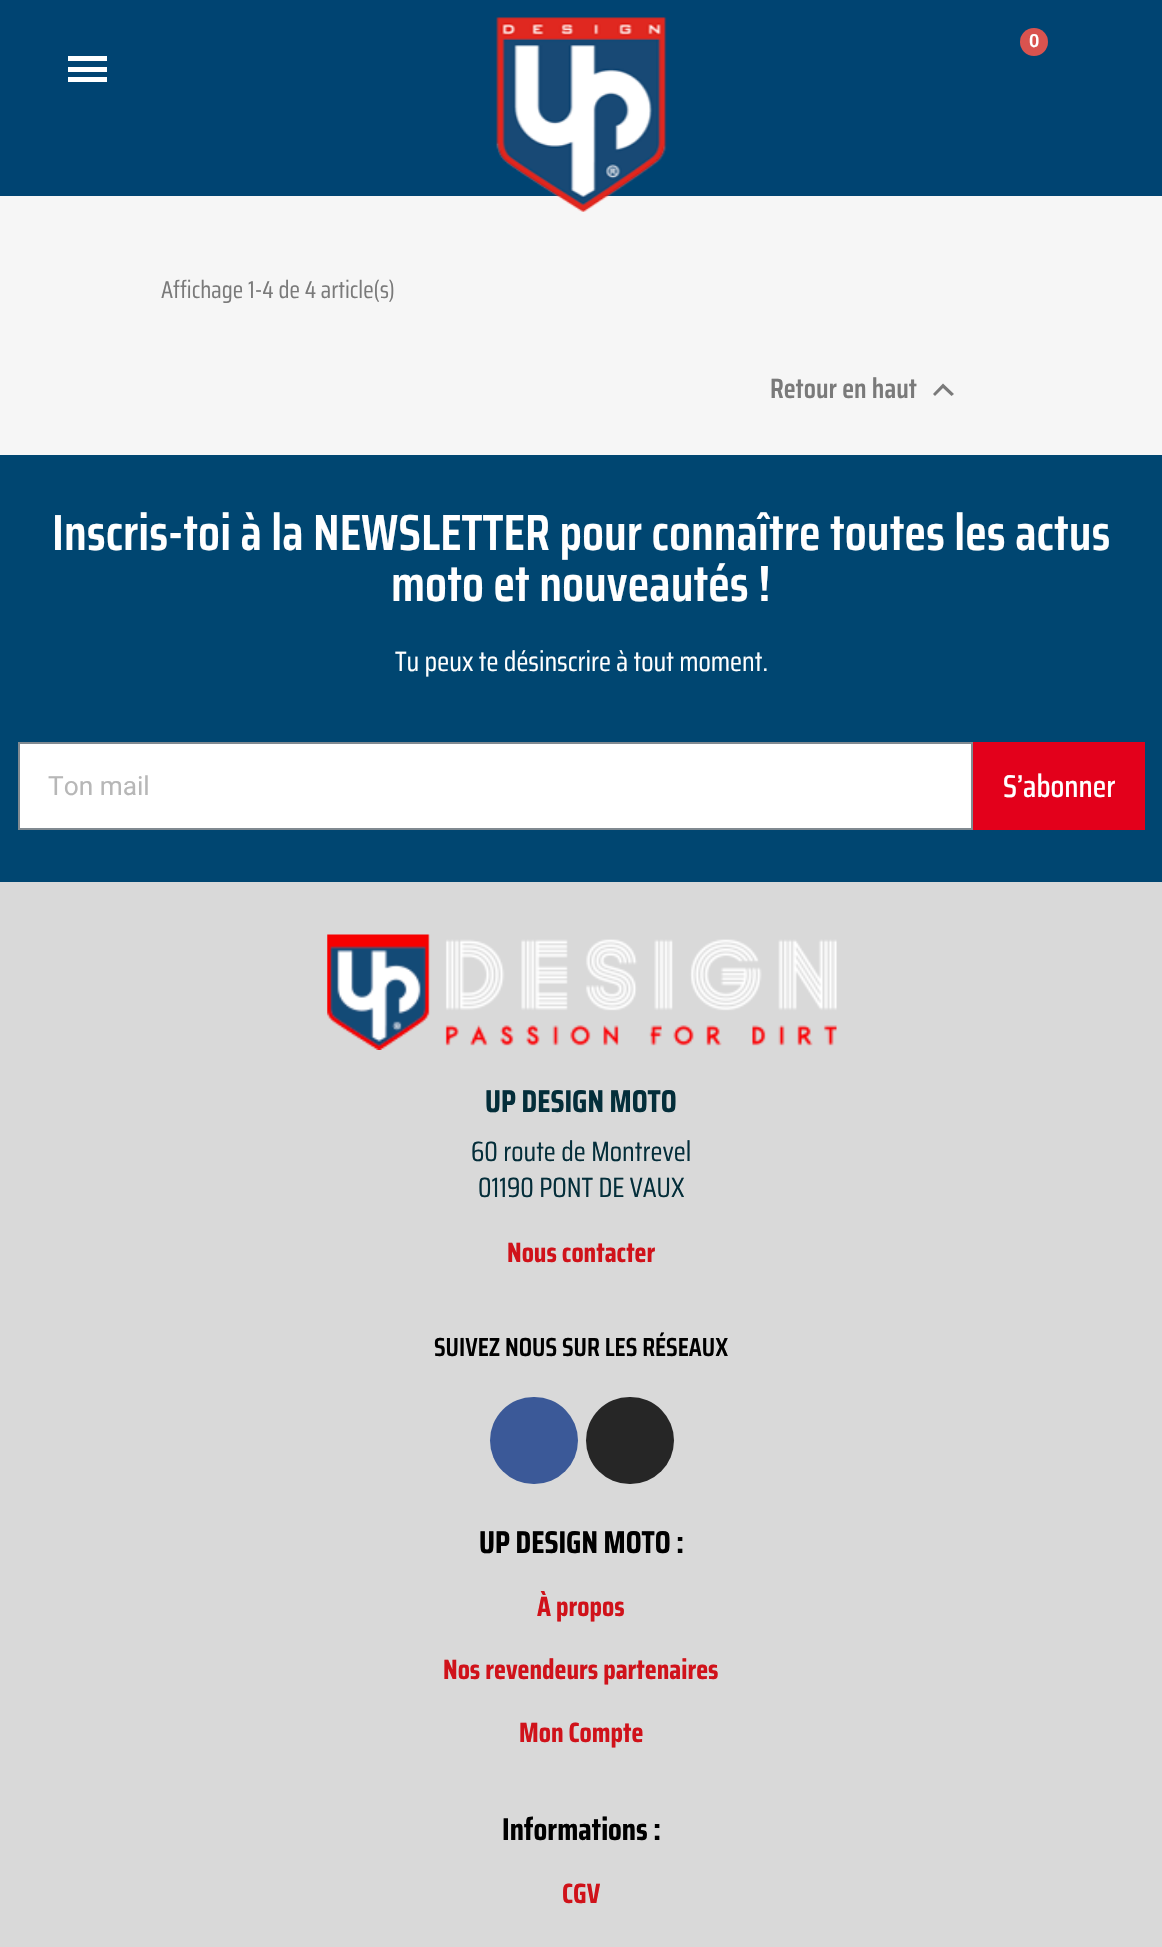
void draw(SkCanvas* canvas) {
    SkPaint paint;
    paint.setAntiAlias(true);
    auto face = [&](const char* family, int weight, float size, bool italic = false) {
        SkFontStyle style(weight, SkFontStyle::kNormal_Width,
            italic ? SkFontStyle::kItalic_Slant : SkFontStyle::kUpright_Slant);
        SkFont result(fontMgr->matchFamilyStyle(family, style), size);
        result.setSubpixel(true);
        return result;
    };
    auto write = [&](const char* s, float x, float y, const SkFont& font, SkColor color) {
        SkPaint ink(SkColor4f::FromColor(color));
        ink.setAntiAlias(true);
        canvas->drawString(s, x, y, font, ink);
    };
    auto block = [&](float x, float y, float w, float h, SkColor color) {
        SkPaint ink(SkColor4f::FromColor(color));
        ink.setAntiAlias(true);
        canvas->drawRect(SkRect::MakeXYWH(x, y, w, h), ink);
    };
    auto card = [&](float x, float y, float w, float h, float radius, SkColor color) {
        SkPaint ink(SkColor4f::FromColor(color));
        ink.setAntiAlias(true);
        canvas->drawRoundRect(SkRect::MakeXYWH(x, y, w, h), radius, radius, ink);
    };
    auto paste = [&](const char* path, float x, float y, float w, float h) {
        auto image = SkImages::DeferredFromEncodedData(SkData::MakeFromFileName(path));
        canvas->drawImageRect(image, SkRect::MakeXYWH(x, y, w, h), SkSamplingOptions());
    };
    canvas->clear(SkColorSetRGB(246, 246, 246));
    block(0, 0, 1162, 196, SkColorSetRGB(0, 68, 114));
    paste("pic1.png", 496, 17, 171, 195);
    paint.setColor(SkColorSetRGB(217, 83, 79));
    canvas->drawCircle(1034, 42, 14, paint);
    auto kFont1 = face("Roboto", 600, 18);
    write("0", 1029, 47, kFont1, SK_ColorWHITE);
    block(68, 67, 39, 5, SK_ColorWHITE);
    block(68, 56, 39, 5, SK_ColorWHITE);
    block(68, 77, 39, 5, SK_ColorWHITE);
    auto kFont2 = face("Saira Condensed", 400, 24.5f);
    write("Affichage 1-4 de 4 article(s)", 161, 298, kFont2, SkColorSetRGB(122, 122, 122));
    auto kFont3 = face("Saira Condensed", 600, 28);
    write("Retour en haut", 770, 398, kFont3, SkColorSetRGB(122, 122, 122));
    paint.setColor(SkColorSetRGB(122, 122, 122));
    canvas->drawPath(SkPathBuilder().moveTo(935, 396).lineTo(933, 394).lineTo(943, 383.5f).lineTo(954, 394).lineTo(951.5f, 396).lineTo(943, 388).close().detach(), paint);
    block(0, 455, 1162, 427, SkColorSetRGB(0, 70, 113));
    auto kFont4 = face("Saira Condensed", 600, 50.75f);
    write("Inscris-toi à la NEWSLETTER pour connaître toutes les actus", 52, 550, kFont4, SK_ColorWHITE);
    write("moto et nouveautés !", 391, 601, kFont4, SK_ColorWHITE);
    auto kFont5 = face("Saira Condensed", 400, 28);
    write("Tu peux te désinscrire à tout moment.", 395, 671, kFont5, SK_ColorWHITE);
    paint.setColor(SK_ColorWHITE);
    canvas->drawRect(SkRect::MakeXYWH(19, 743, 953, 86), paint);
    paint.setStyle(SkPaint::kStroke_Style);
    paint.setStrokeWidth(2);
    paint.setColor(SkColorSetRGB(129, 138, 145));
    canvas->drawRect(SkRect::MakeXYWH(19, 743, 953, 86), paint);
    auto kFont6 = face("Roboto", 400, 26.25f);
    write("Ton mail", 48, 795, kFont6, SkColorSetRGB(183, 183, 183));
    block(973, 742, 172, 88, SkColorSetRGB(227, 0, 27));
    auto kFont7 = face("Saira Condensed", 500, 31.5f);
    write("S’abonner", 1003, 797, kFont7, SK_ColorWHITE);
    block(0, 882, 1162, 1065, SkColorSetRGB(217, 217, 217));
    paste("pic2.png", 327, 934, 510, 116);
    auto kFont8 = face("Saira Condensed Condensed", 700, 31.5f);
    write("UP DESIGN MOTO", 485, 1112, kFont8, SkColorSetRGB(4, 46, 58));
    write("60 route de Montrevel", 471, 1161, kFont5, SkColorSetRGB(4, 46, 58));
    write("01190 PONT DE VAUX", 478, 1197, kFont5, SkColorSetRGB(4, 46, 58));
    auto kFont9 = face("Saira Condensed Condensed", 700, 28);
    write("Nous contacter", 507, 1262, kFont9, SkColorSetRGB(208, 18, 26));
    auto kFont10 = face("Saira Condensed", 600, 26.25f);
    write("SUIVEZ NOUS SUR LES RÉSEAUX", 434, 1356, kFont10, SK_ColorBLACK);
    card(490, 1397, 88, 87, 43.5f, SkColorSetRGB(59, 89, 152));
    card(586, 1397, 88, 87, 43.5f, SkColorSetRGB(38, 38, 38));
    write("UP DESIGN MOTO :", 479, 1553, kFont8, SK_ColorBLACK);
    write("À propos", 537, 1616, kFont9, SkColorSetRGB(208, 18, 26));
    write("Nos revendeurs partenaires", 443, 1679, kFont9, SkColorSetRGB(208, 18, 26));
    write("Mon Compte", 519, 1742, kFont9, SkColorSetRGB(208, 18, 26));
    write("Informations :", 502, 1840, kFont8, SK_ColorBLACK);
    write("CGV", 562, 1903, kFont9, SkColorSetRGB(208, 18, 26));
}
